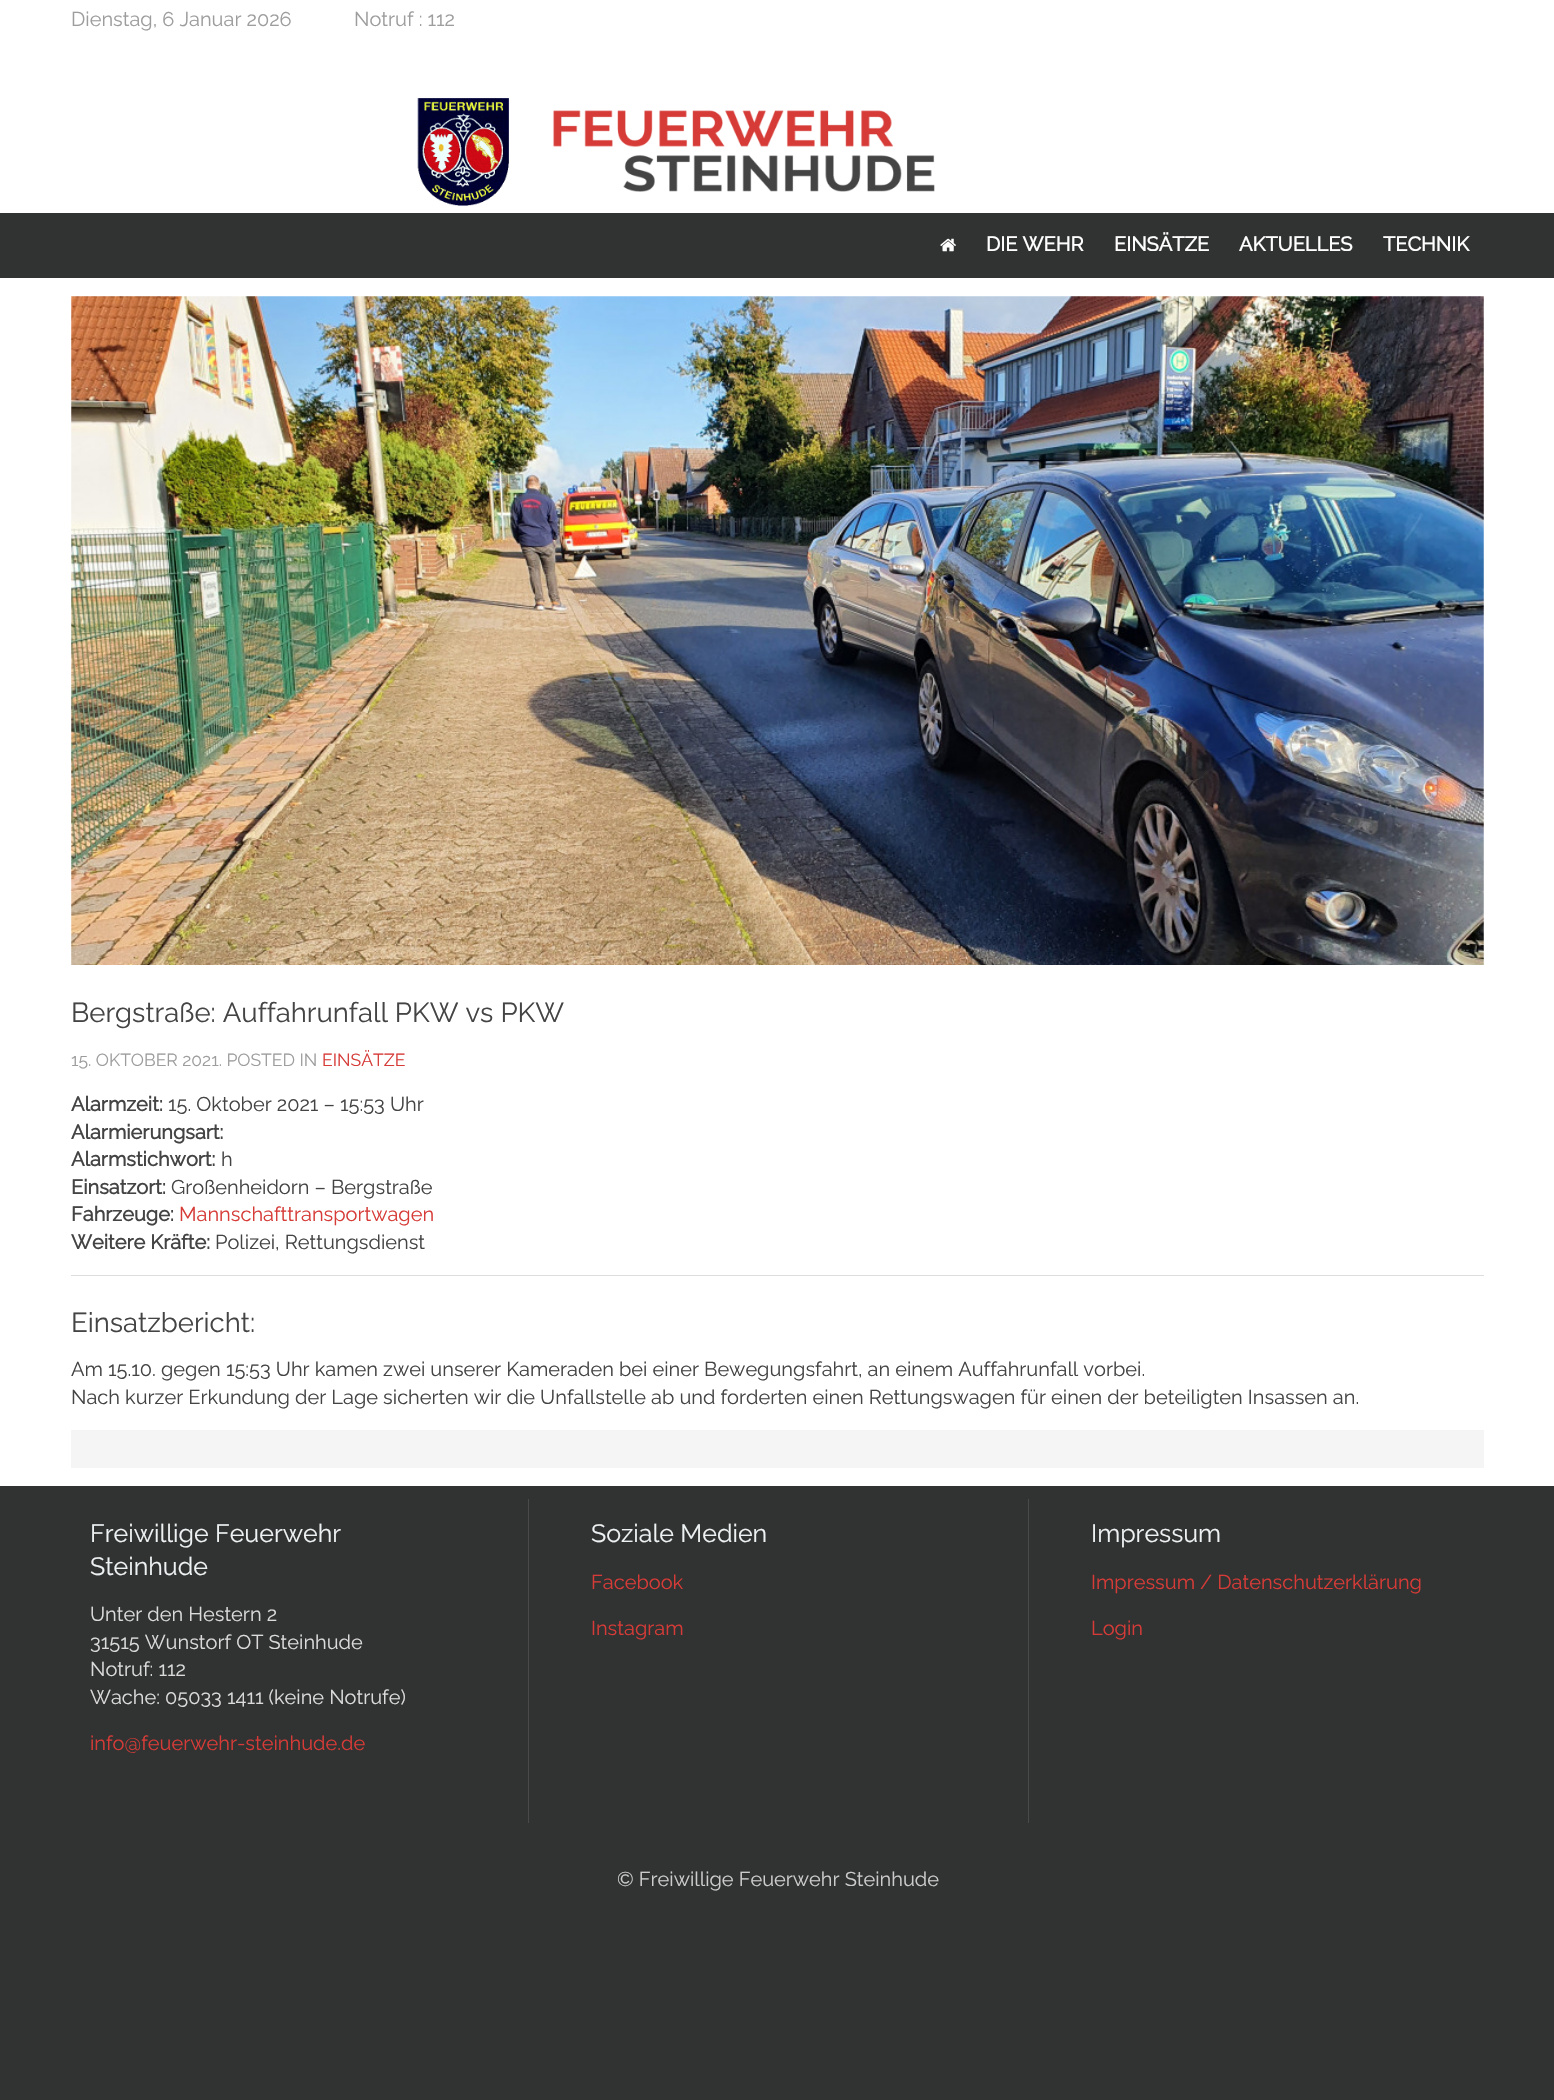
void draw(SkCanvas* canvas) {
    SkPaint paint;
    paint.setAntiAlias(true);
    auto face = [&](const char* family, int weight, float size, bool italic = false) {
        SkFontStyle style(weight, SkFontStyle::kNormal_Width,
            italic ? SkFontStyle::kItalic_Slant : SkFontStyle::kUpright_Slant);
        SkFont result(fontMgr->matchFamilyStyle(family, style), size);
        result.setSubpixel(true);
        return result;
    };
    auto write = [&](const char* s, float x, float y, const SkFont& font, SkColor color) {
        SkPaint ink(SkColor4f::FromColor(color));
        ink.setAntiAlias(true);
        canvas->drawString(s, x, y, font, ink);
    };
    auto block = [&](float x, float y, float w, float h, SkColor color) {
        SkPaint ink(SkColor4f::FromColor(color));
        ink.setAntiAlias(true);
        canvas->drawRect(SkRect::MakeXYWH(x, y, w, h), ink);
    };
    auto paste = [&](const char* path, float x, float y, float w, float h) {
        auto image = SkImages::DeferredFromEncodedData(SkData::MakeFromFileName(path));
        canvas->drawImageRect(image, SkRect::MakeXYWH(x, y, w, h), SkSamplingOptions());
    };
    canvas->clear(SkColorSetRGB(49, 50, 50));
    block(0, 0, 1554, 213, SK_ColorWHITE);
    paste("pic1.png", 417, 98, 518, 108);
    auto kFont1 = face("Raleway", 100, 20);
    write("Dienstag, 6 Januar 2026", 71, 26, kFont1, SkColorSetRGB(157, 157, 157));
    write("Notruf : 112", 354, 26, kFont1, SkColorSetRGB(157, 157, 157));
    paste("pic2.png", 940, 238, 16, 14);
    auto kFont2 = face("Raleway", 700, 20);
    write("DIE WEHR", 986, 251, kFont2, SK_ColorWHITE);
    write("EINSÄTZE", 1114, 251, kFont2, SK_ColorWHITE);
    write("AKTUELLES", 1239, 251, kFont2, SK_ColorWHITE);
    write("TECHNIK", 1383, 251, kFont2, SK_ColorWHITE);
    block(0, 278, 1554, 1208, SK_ColorWHITE);
    paste("pic3.png", 71, 296, 1413, 669);
    auto kFont3 = face("Raleway", 100, 27.5f);
    write("Bergstraße: Auffahrunfall PKW vs PKW", 71, 1022, kFont3, SkColorSetRGB(68, 68, 68));
    auto kFont4 = face("Raleway", 100, 17.5f);
    write("15. OKTOBER 2021. POSTED IN", 71, 1066, kFont4, SkColorSetRGB(157, 157, 157));
    write("EINSÄTZE", 322, 1066, kFont4, SkColorSetRGB(214, 59, 55));
    write("Alarmzeit:", 71, 1111, kFont2, SkColorSetRGB(68, 68, 68));
    write("15. Oktober 2021 – 15:53 Uhr", 168, 1111, kFont1, SkColorSetRGB(68, 68, 68));
    write("Alarmierungsart:", 71, 1139, kFont2, SkColorSetRGB(68, 68, 68));
    write("Alarmstichwort:", 71, 1166, kFont2, SkColorSetRGB(68, 68, 68));
    write("h", 221, 1166, kFont1, SkColorSetRGB(68, 68, 68));
    write("Einsatzort:", 71, 1194, kFont2, SkColorSetRGB(68, 68, 68));
    write("Großenheidorn – Bergstraße", 171, 1194, kFont1, SkColorSetRGB(68, 68, 68));
    write("Fahrzeuge:", 71, 1221, kFont2, SkColorSetRGB(68, 68, 68));
    write("Mannschafttransportwagen", 179, 1221, kFont1, SkColorSetRGB(214, 59, 55));
    write("Weitere Kräfte:", 71, 1249, kFont2, SkColorSetRGB(68, 68, 68));
    write("Polizei, Rettungsdienst", 215, 1249, kFont1, SkColorSetRGB(68, 68, 68));
    block(71, 1275, 1413, 1, SkColorSetRGB(221, 221, 221));
    write("Einsatzbericht:", 71, 1332, kFont3, SkColorSetRGB(68, 68, 68));
    write("Am 15.10. gegen 15:53 Uhr kamen zwei unserer Kameraden bei einer Bewegungsfahrt, an einem Auffahrunfall vorbei.", 71, 1376, kFont1, SkColorSetRGB(68, 68, 68));
    write("Nach kurzer Erkundung der Lage sicherten wir die Unfallstelle ab und forderten einen Rettungswagen für einen der beteiligten Insassen an.", 71, 1404, kFont1, SkColorSetRGB(68, 68, 68));
    block(71, 1430, 1413, 38, SkColorSetRGB(245, 245, 245));
    auto kFont5 = face("Raleway", 100, 25);
    write("Freiwillige Feuerwehr", 90, 1542, kFont5, SkColorSetRGB(238, 242, 243));
    write("Steinhude", 90, 1575, kFont5, SkColorSetRGB(238, 242, 243));
    write("Unter den Hestern 2", 90, 1621, kFont1, SkColorSetRGB(219, 219, 219));
    write("31515 Wunstorf OT Steinhude", 90, 1649, kFont1, SkColorSetRGB(219, 219, 219));
    write("Notruf: 112", 90, 1676, kFont1, SkColorSetRGB(219, 219, 219));
    write("Wache: 05033 1411 (keine Notrufe)", 90, 1704, kFont1, SkColorSetRGB(219, 219, 219));
    write("info@feuerwehr-steinhude.de", 90, 1750, kFont1, SkColorSetRGB(214, 59, 55));
    block(528, 1499, 1, 324, SkColorSetRGB(74, 74, 74));
    write("Soziale Medien", 591, 1542, kFont5, SkColorSetRGB(238, 242, 243));
    write("Facebook", 591, 1589, kFont1, SkColorSetRGB(214, 59, 55));
    write("Instagram", 591, 1635, kFont1, SkColorSetRGB(214, 59, 55));
    block(1028, 1499, 1, 324, SkColorSetRGB(74, 74, 74));
    write("Impressum", 1091, 1542, kFont5, SkColorSetRGB(238, 242, 243));
    write("Impressum / Datenschutzerklärung", 1091, 1589, kFont1, SkColorSetRGB(214, 59, 55));
    write("Login", 1091, 1635, kFont1, SkColorSetRGB(214, 59, 55));
    write("© Freiwillige Feuerwehr Steinhude", 617, 1886, kFont1, SkColorSetRGB(204, 204, 204));
}
